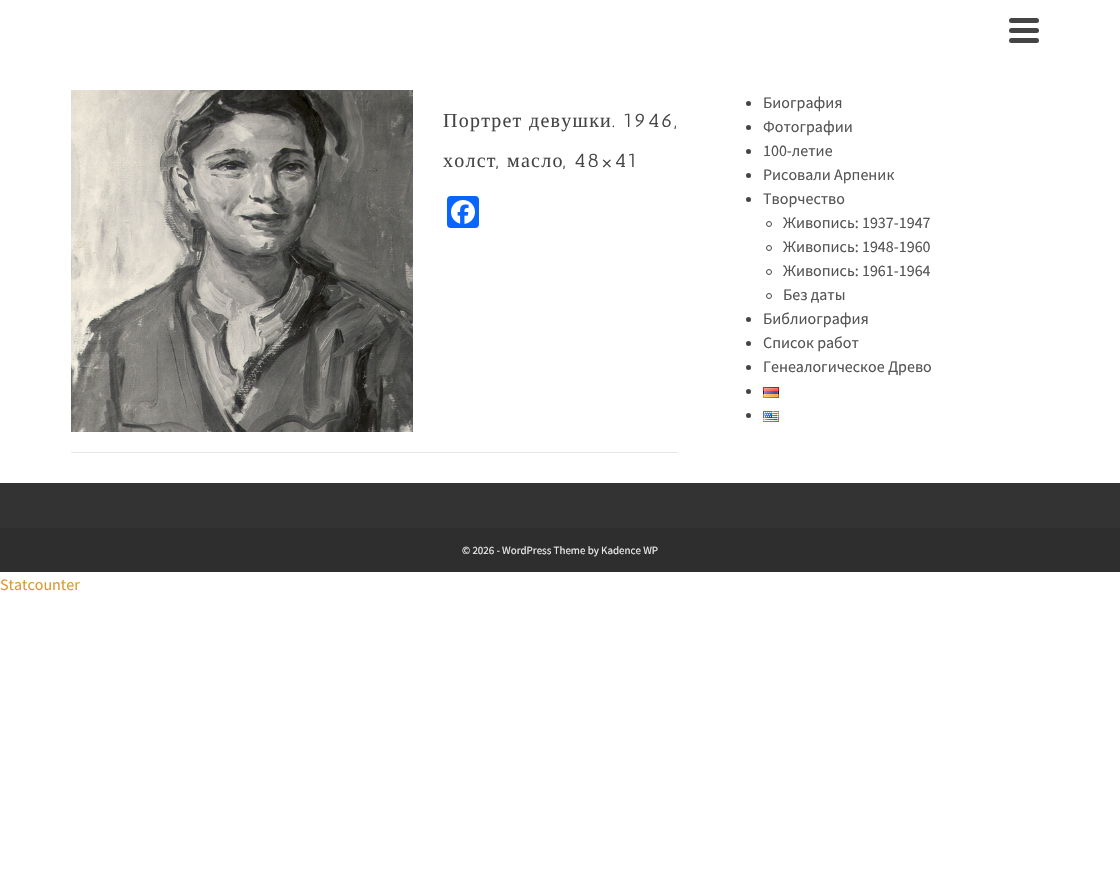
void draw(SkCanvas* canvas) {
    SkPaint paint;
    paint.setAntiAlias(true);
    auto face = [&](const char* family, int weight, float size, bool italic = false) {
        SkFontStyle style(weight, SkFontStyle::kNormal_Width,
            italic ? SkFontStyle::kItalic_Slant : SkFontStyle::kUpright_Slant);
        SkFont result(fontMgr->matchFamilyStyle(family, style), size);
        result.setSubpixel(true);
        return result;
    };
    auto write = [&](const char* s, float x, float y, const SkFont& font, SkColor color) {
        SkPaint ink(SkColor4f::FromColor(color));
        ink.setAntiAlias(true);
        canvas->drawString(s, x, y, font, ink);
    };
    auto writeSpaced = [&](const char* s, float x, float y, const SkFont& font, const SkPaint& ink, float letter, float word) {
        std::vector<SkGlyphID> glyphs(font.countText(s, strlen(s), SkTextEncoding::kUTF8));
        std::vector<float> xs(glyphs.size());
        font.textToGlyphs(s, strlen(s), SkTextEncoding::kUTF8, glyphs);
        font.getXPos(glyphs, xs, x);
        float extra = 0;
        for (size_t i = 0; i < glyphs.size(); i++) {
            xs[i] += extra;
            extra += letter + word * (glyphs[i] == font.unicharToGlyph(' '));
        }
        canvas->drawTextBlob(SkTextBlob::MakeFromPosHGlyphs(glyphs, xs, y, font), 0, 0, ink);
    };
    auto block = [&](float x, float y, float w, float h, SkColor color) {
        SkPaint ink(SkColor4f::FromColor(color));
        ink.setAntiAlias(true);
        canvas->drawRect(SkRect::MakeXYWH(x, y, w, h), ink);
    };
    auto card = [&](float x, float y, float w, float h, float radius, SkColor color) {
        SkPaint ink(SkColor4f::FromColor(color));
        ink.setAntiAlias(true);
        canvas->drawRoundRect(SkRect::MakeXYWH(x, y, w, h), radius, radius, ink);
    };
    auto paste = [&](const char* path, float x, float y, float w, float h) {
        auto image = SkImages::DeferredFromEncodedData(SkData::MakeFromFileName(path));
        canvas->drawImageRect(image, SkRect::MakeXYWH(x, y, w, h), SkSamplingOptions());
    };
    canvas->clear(SK_ColorWHITE);
    card(1009, 18, 30, 5, 2.5f, SkColorSetRGB(68, 68, 68));
    card(1009, 28, 30, 5, 2.5f, SkColorSetRGB(68, 68, 68));
    card(1009, 38, 30, 5, 2.5f, SkColorSetRGB(68, 68, 68));
    paste("pic1.png", 71, 90, 342, 342);
    auto kFont1 = face("Liberation Serif", 400, 20);
    paint.setColor(SkColorSetRGB(68, 68, 68));
    writeSpaced("Портрет", 443, 127, kFont1, paint, 1.25f, 0);
    writeSpaced("девушки", 529, 127, kFont1, paint, 1.25f, 0);
    auto kFont2 = face("Antic Slab", 400, 20);
    writeSpaced(". 1946,", 612, 127, kFont2, paint, 1.25f, 0);
    writeSpaced("холст", 443, 167, kFont1, paint, 1.25f, 0);
    writeSpaced(",", 496, 167, kFont2, paint, 1.25f, 0);
    writeSpaced("масло", 507, 167, kFont1, paint, 1.25f, 0);
    writeSpaced(", 48×41", 563, 167, kFont2, paint, 1.25f, 0);
    card(447, 196, 32, 32, 4, SkColorSetRGB(8, 102, 255));
    paste("pic2.png", 451, 200, 24, 24);
    block(71, 452, 607, 1, SkColorSetRGB(230, 230, 230));
    canvas->drawCircle(748.5f, 103.5f, 2.5f, paint);
    auto kFont3 = face("Source Sans Pro", 400, 16);
    write("Биография", 763, 108, kFont3, SkColorSetRGB(85, 85, 85));
    canvas->drawCircle(748.5f, 127.5f, 2.5f, paint);
    write("Фотографии", 763, 132, kFont3, SkColorSetRGB(85, 85, 85));
    canvas->drawCircle(748.5f, 151.5f, 2.5f, paint);
    write("100-летие", 763, 156, kFont3, SkColorSetRGB(85, 85, 85));
    canvas->drawCircle(748.5f, 175.5f, 2.5f, paint);
    write("Рисовали Арпеник", 763, 180, kFont3, SkColorSetRGB(85, 85, 85));
    canvas->drawCircle(748.5f, 199.5f, 2.5f, paint);
    write("Творчество", 763, 204, kFont3, SkColorSetRGB(85, 85, 85));
    paint.setStyle(SkPaint::kStroke_Style);
    paint.setStrokeWidth(1);
    canvas->drawCircle(769, 224, 2.5f, paint);
    write("Живопись: 1937-1947", 783, 228, kFont3, SkColorSetRGB(85, 85, 85));
    canvas->drawCircle(769, 248, 2.5f, paint);
    write("Живопись: 1948-1960", 783, 252, kFont3, SkColorSetRGB(85, 85, 85));
    canvas->drawCircle(769, 272, 2.5f, paint);
    write("Живопись: 1961-1964", 783, 276, kFont3, SkColorSetRGB(85, 85, 85));
    canvas->drawCircle(769, 296, 2.5f, paint);
    write("Без даты", 783, 300, kFont3, SkColorSetRGB(85, 85, 85));
    paint.setStyle(SkPaint::kFill_Style);
    canvas->drawCircle(748.5f, 319.5f, 2.5f, paint);
    write("Библиография", 763, 324, kFont3, SkColorSetRGB(85, 85, 85));
    canvas->drawCircle(748.5f, 343.5f, 2.5f, paint);
    write("Список работ", 763, 348, kFont3, SkColorSetRGB(85, 85, 85));
    canvas->drawCircle(748.5f, 367.5f, 2.5f, paint);
    write("Генеалогическое Древо", 763, 372, kFont3, SkColorSetRGB(85, 85, 85));
    canvas->drawCircle(748.5f, 391.5f, 2.5f, paint);
    paste("pic3.png", 763, 387, 16, 11);
    canvas->drawCircle(748.5f, 415.5f, 2.5f, paint);
    paste("pic4.png", 763, 411, 16, 11);
    block(0, 483, 1120, 45, SkColorSetRGB(51, 51, 51));
    block(0, 528, 1120, 44, SkColorSetRGB(46, 46, 46));
    auto kFont4 = face("Source Sans Pro", 400, 11);
    write("© 2026 - WordPress Theme by Kadence WP", 462, 554, kFont4, SkColorSetRGB(238, 238, 238));
    write("Statcounter", 0, 590, kFont3, SkColorSetRGB(221, 153, 51));
}
